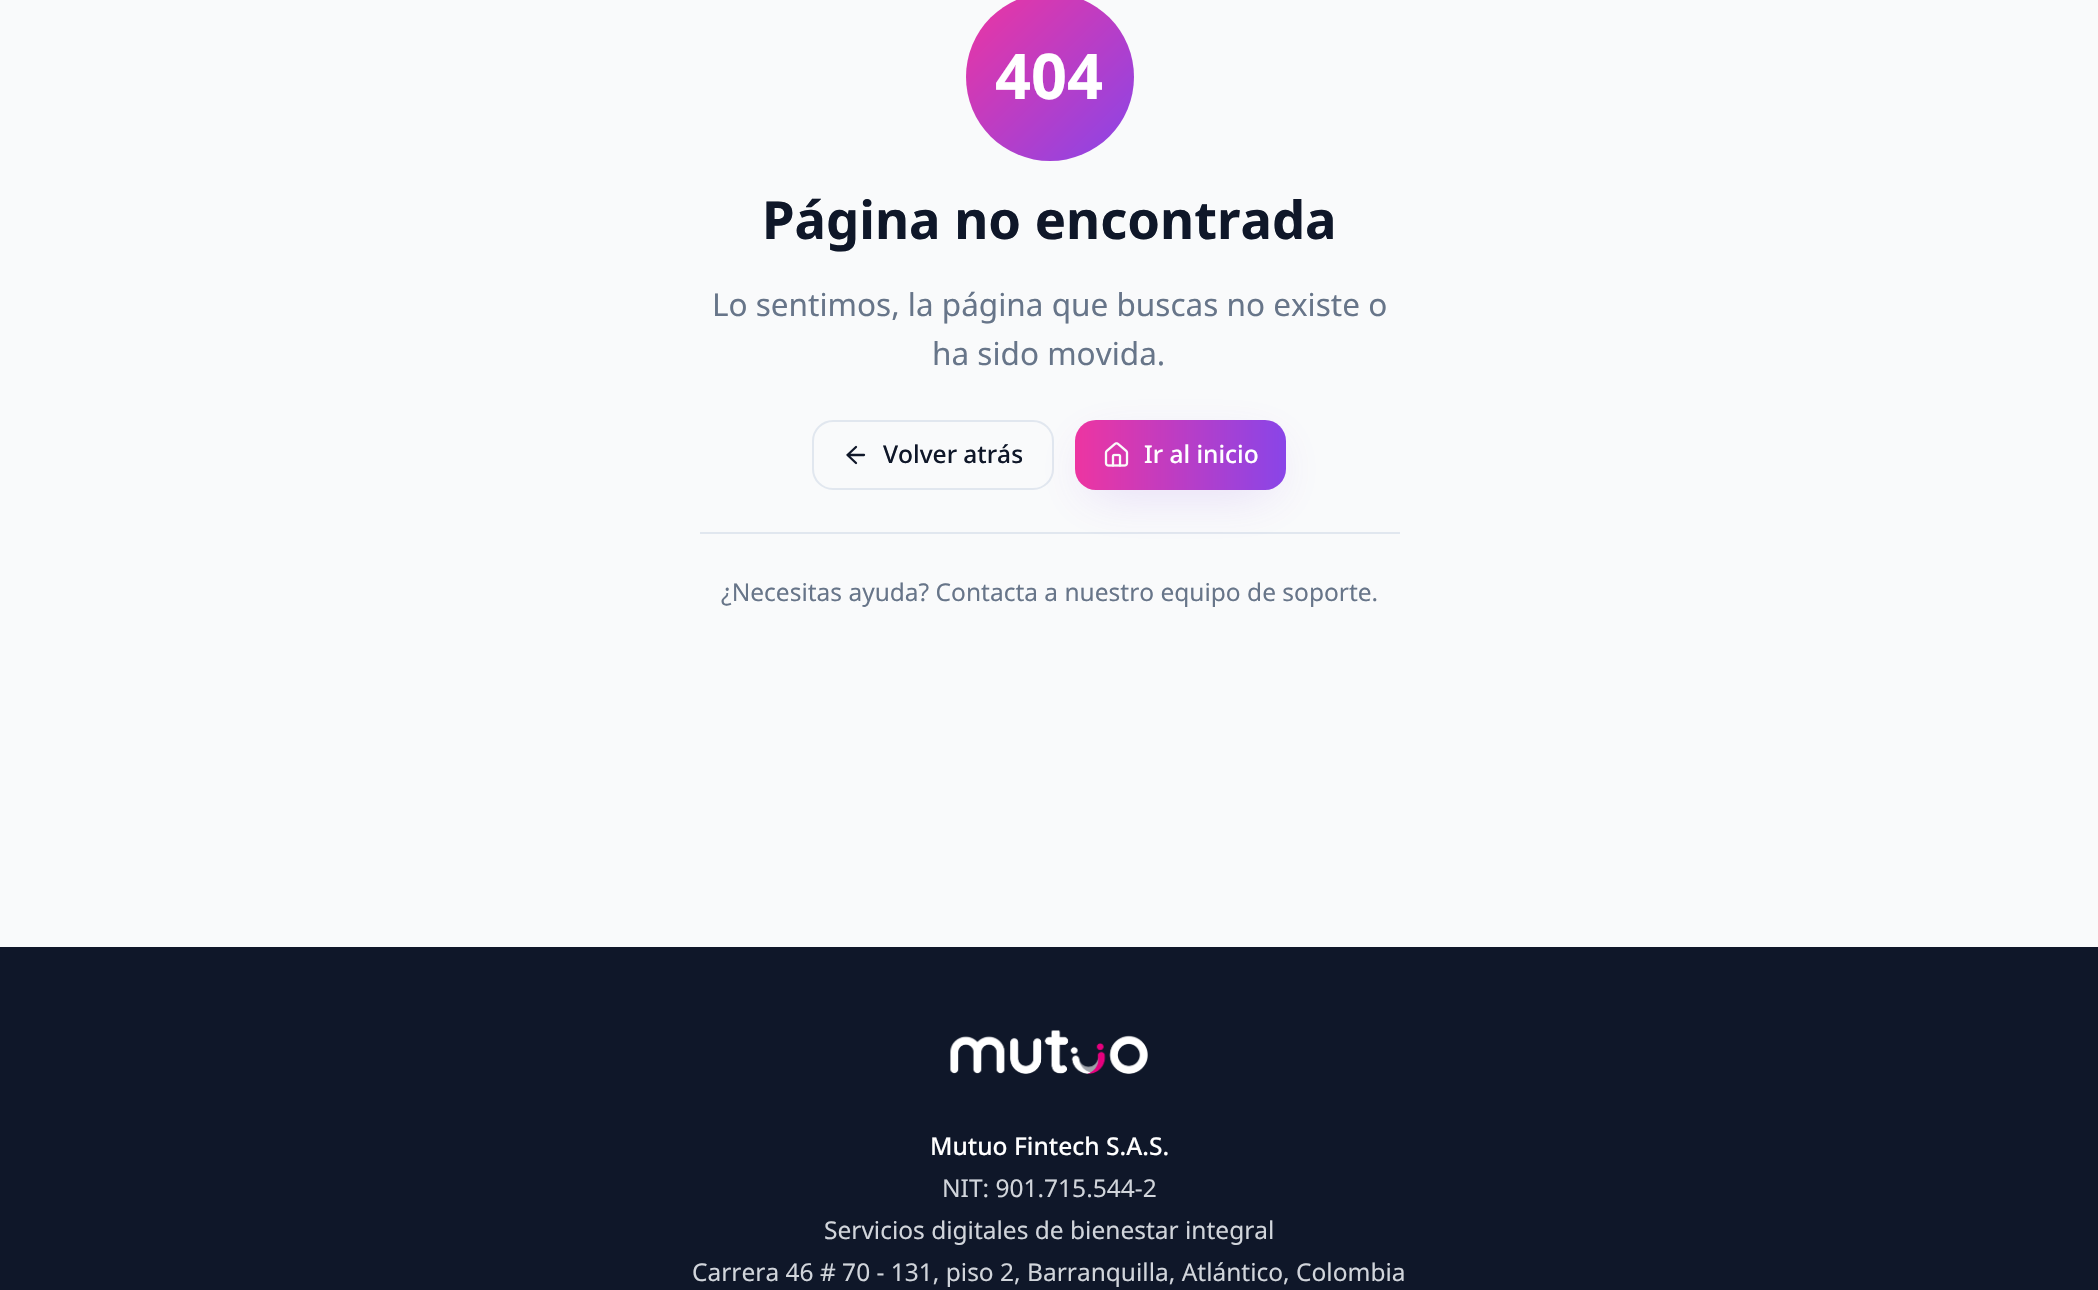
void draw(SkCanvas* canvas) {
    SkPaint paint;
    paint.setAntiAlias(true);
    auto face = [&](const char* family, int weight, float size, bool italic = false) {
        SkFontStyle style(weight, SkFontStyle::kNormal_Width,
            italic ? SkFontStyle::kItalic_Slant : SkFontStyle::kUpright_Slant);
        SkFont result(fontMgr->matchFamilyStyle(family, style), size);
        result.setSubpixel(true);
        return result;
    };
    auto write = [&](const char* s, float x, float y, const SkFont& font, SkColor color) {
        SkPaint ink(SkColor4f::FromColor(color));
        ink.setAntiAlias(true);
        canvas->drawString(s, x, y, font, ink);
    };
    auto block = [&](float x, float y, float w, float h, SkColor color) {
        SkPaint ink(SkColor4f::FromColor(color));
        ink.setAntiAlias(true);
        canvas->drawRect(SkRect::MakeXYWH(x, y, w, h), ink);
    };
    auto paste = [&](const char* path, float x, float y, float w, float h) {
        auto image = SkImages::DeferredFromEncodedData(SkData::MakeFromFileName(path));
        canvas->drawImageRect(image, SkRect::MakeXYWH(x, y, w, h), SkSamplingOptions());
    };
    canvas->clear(SkColorSetRGB(249, 250, 251));
    {
        const SkColor colors[] = {SkColorSetRGB(237, 53, 161), SkColorSetRGB(137, 69, 232)};
        const float stops[] = {0, 1};
        const SkPoint ends[] = {{966, -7}, {1134, 161}};
        paint.setShader(SkGradientShader::MakeLinear(ends, colors, stops, 2, SkTileMode::kClamp));
        paint.setAlpha(255);
    }
    canvas->drawCircle(1050, 77, 84, paint);
    auto kFont1 = face("Noto Sans", 700, 63);
    write("404", 995, 99, kFont1, SK_ColorWHITE);
    auto kFont2 = face("Noto Sans", 700, 52.5f);
    write("Página no encontrada", 762, 239, kFont2, SkColorSetRGB(15, 23, 41));
    auto kFont3 = face("Noto Sans", 400, 31.5f);
    write("Lo sentimos, la página que buscas no existe o", 712, 316, kFont3, SkColorSetRGB(103, 117, 137));
    write("ha sido movida.", 932, 365, kFont3, SkColorSetRGB(103, 117, 137));
    paint.setStyle(SkPaint::kStroke_Style);
    paint.setStrokeWidth(2);
    paint.setShader(nullptr);
    paint.setColor(SkColorSetRGB(225, 231, 239));
    canvas->drawRoundRect(SkRect::MakeXYWH(813, 421, 240, 68), 20, 20, paint);
    paint.setStrokeWidth(2.3f);
    paint.setStrokeCap(SkPaint::kRound_Cap);
    paint.setStrokeJoin(SkPaint::kRound_Join);
    paint.setColor(SkColorSetRGB(15, 23, 41));
    canvas->drawPath(SkPathBuilder().moveTo(856, 463).lineTo(847.5f, 455).lineTo(856, 447).moveTo(864, 455).lineTo(847.5f, 455).detach(), paint);
    auto kFont4 = face("Noto Sans", 500, 24.5f);
    write("Volver atrás", 883, 463, kFont4, SkColorSetRGB(15, 23, 41));
    block(700, 532, 700, 2, SkColorSetRGB(225, 231, 239));
    paint.setStyle(SkPaint::kFill_Style);
    paint.setColor(SkColorSetARGB(51, 137, 69, 232));
    paint.setMaskFilter(SkMaskFilter::MakeBlur(kNormal_SkBlurStyle, 26));
    canvas->drawRoundRect(SkRect::MakeXYWH(1089, 448, 183, 42), 7, 7, paint);
    paint.setMaskFilter(nullptr);
    {
        const SkColor colors[] = {SkColorSetRGB(237, 53, 161), SkColorSetRGB(137, 69, 232)};
        const float stops[] = {0, 1};
        const SkPoint ends[] = {{1075, 455}, {1286, 455}};
        paint.setShader(SkGradientShader::MakeLinear(ends, colors, stops, 2, SkTileMode::kClamp));
        paint.setAlpha(255);
    }
    canvas->drawRoundRect(SkRect::MakeXYWH(1075, 420, 211, 70), 21, 21, paint);
    paste("pic1.png", 1104, 442, 25, 25);
    write("Ir al inicio", 1144, 463, kFont4, SK_ColorWHITE);
    auto kFont5 = face("Noto Sans", 400, 24.5f);
    write("¿Necesitas ayuda? Contacta a nuestro equipo de soporte.", 721, 601, kFont5, SkColorSetRGB(103, 117, 137));
    block(0, 947, 2098, 343, SkColorSetRGB(15, 23, 41));
    paste("pic2.png", 950, 1030, 198, 44);
    write("Mutuo Fintech S.A.S.", 930, 1155, kFont4, SK_ColorWHITE);
    write("NIT: 901.715.544-2", 942, 1197, kFont5, SkColorSetRGB(209, 213, 219));
    write("Servicios digitales de bienestar integral", 824, 1239, kFont5, SkColorSetRGB(209, 213, 219));
    write("Carrera 46 # 70 - 131, piso 2, Barranquilla, Atlántico, Colombia", 692, 1281, kFont5, SkColorSetRGB(209, 213, 219));
}
